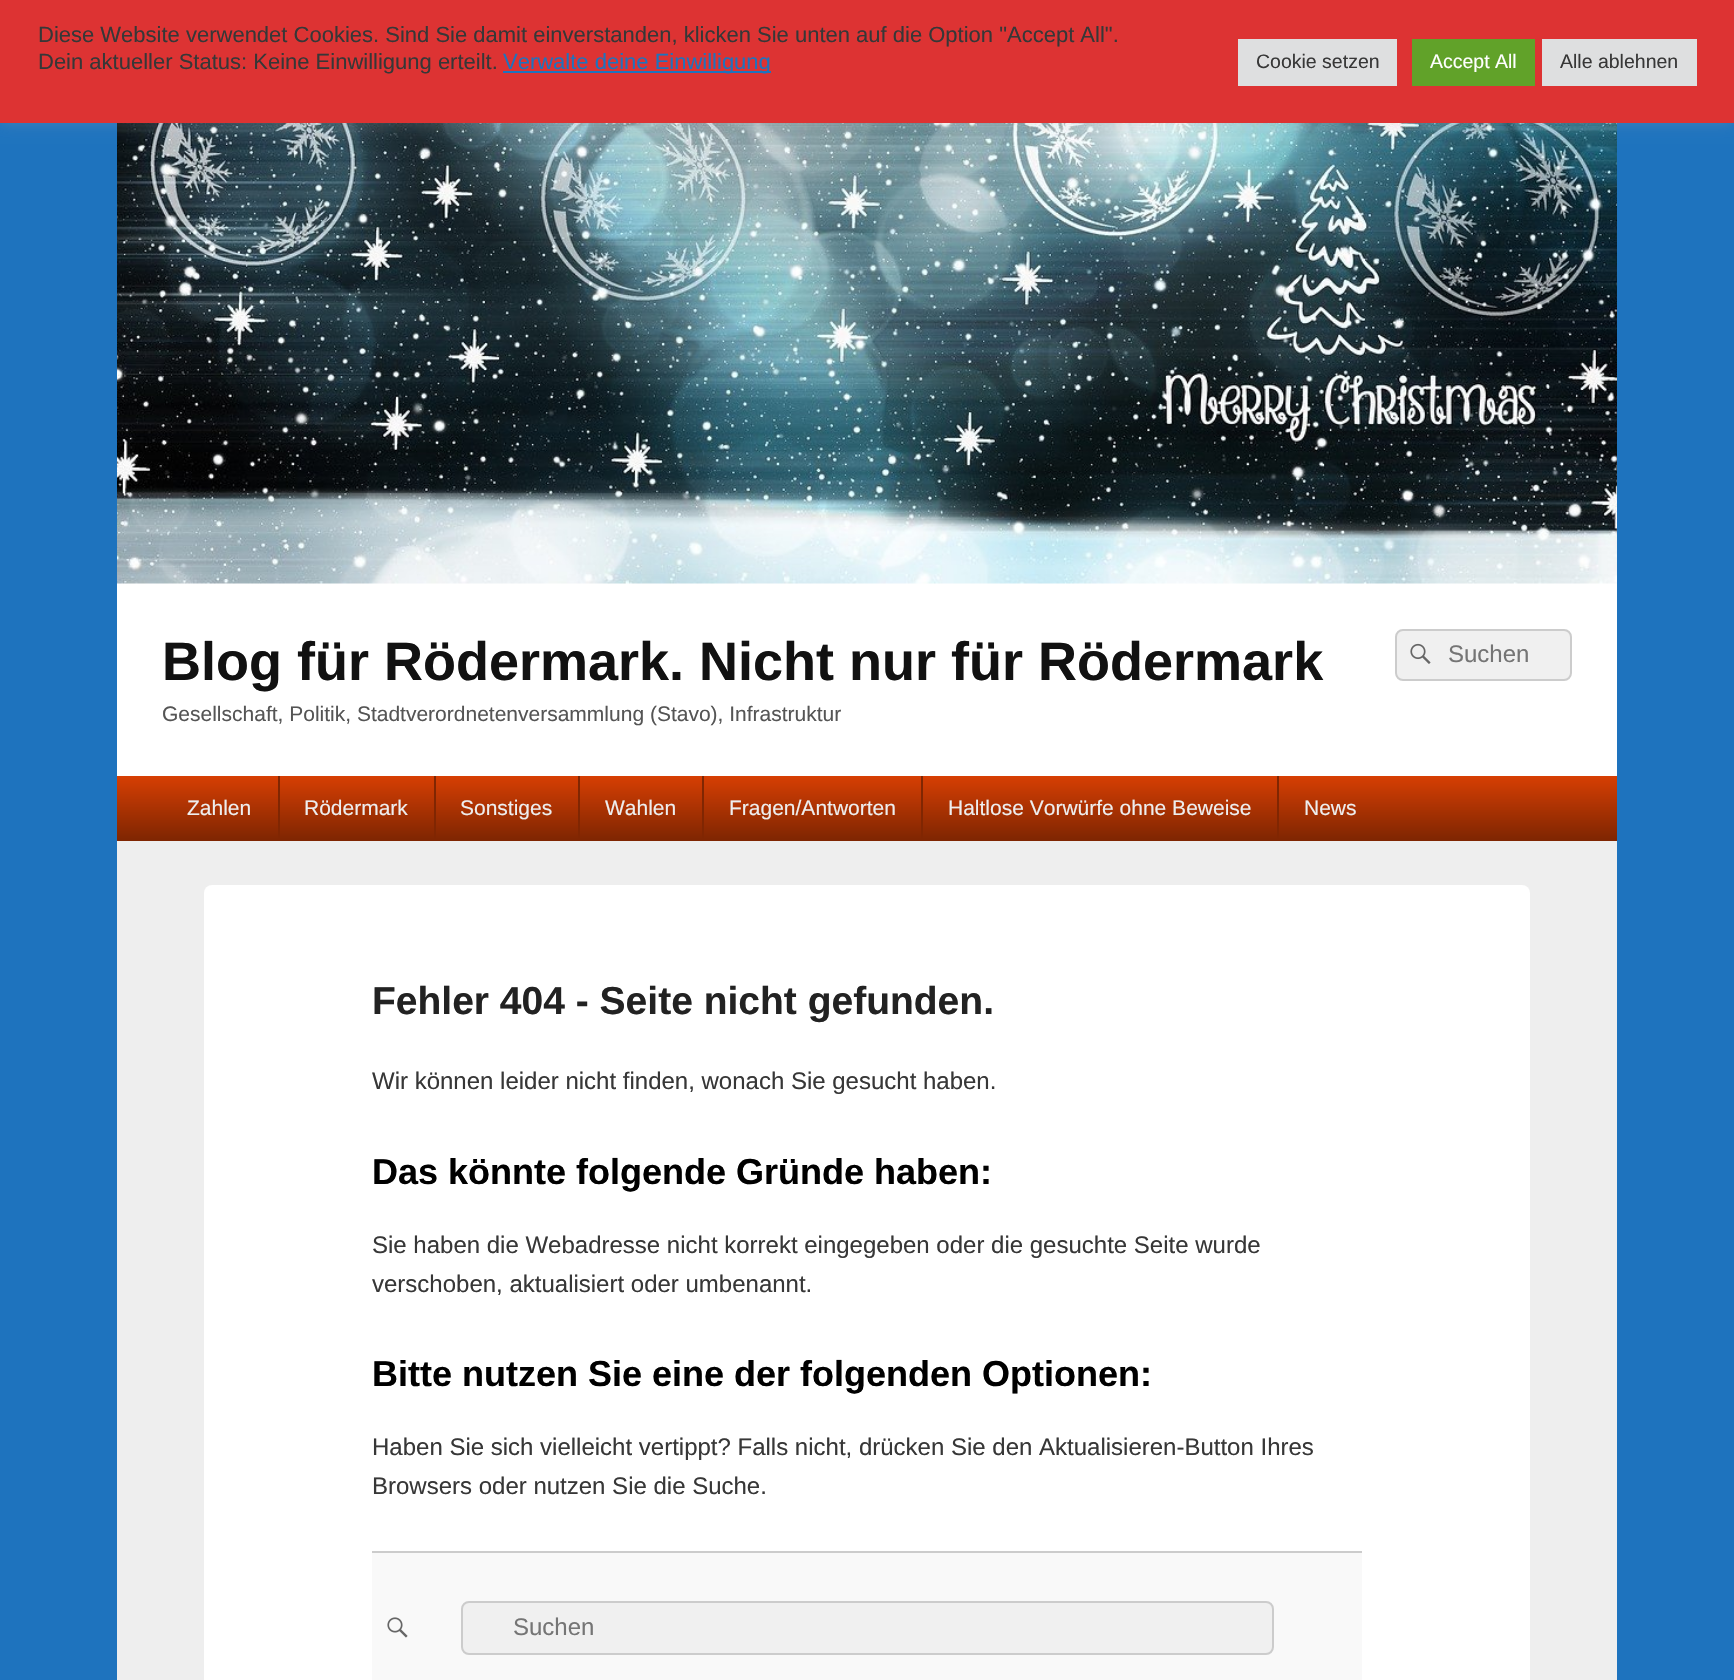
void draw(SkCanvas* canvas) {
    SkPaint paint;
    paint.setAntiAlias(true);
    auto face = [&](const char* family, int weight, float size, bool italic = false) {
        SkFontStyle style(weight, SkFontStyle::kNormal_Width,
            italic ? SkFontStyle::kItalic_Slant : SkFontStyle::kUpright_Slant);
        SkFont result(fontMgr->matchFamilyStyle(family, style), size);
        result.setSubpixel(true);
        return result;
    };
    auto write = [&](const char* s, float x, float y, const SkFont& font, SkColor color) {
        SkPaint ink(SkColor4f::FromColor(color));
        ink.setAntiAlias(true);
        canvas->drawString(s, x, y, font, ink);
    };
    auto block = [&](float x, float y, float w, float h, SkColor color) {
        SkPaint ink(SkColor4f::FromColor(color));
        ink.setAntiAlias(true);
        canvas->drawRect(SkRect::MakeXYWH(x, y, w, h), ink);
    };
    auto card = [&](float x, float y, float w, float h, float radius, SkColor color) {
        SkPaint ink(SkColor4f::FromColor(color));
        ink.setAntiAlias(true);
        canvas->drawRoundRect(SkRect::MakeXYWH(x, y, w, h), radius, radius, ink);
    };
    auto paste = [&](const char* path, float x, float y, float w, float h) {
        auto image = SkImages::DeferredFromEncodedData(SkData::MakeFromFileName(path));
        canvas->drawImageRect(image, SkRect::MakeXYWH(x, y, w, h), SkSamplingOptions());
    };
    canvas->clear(SkColorSetRGB(30, 115, 190));
    block(117, 583, 1500, 193, SK_ColorWHITE);
    paste("pic1.png", 117, 123, 1500, 461);
    paint.setColor(SkColorSetARGB(77, 172, 171, 171));
    paint.setMaskFilter(SkMaskFilter::MakeBlur(kNormal_SkBlurStyle, 7.5f));
    canvas->drawRect(SkRect::MakeXYWH(0, -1, 1734, 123), paint);
    paint.setMaskFilter(nullptr);
    block(0, 0, 1734, 123, SkColorSetRGB(221, 51, 51));
    auto kFont1 = face("Liberation Sans", 400, 22);
    write("Diese Website verwendet Cookies. Sind Sie damit einverstanden, klicken Sie unten auf die Option \"Accept All\".", 38, 42, kFont1, SkColorSetRGB(55, 55, 55));
    write("Dein aktueller Status: Keine Einwilligung erteilt.", 38, 69, kFont1, SkColorSetRGB(55, 55, 55));
    block(503, 71, 268, 2, SkColorSetRGB(30, 115, 190));
    write("Verwalte deine Einwilligung", 503, 69, kFont1, SkColorSetRGB(30, 115, 190));
    block(1238, 39, 159, 47, SkColorSetRGB(222, 223, 224));
    auto kFont2 = face("Liberation Sans", 400, 19.5f);
    write("Cookie setzen", 1256, 68, kFont2, SkColorSetRGB(55, 55, 55));
    block(1412, 39, 123, 47, SkColorSetRGB(97, 162, 41));
    write("Accept All", 1430, 68, kFont2, SK_ColorWHITE);
    block(1542, 39, 155, 47, SkColorSetRGB(222, 223, 224));
    write("Alle ablehnen", 1560, 68, kFont2, SkColorSetRGB(55, 55, 55));
    block(117, 841, 1500, 839, SkColorSetRGB(238, 238, 238));
    auto kFont3 = face("Liberation Sans", 700, 54);
    write("Blog für Rödermark. Nicht nur für Rödermark", 162, 680, kFont3, SkColorSetRGB(17, 17, 17));
    auto kFont4 = face("Liberation Sans", 400, 21);
    write("Gesellschaft, Politik, Stadtverordnetenversammlung (Stavo), Infrastruktur", 162, 721, kFont4, SkColorSetRGB(85, 85, 85));
    paint.setColor(SkColorSetRGB(240, 240, 240));
    canvas->drawRoundRect(SkRect::MakeXYWH(1396, 630, 175, 50), 7, 7, paint);
    paint.setStyle(SkPaint::kStroke_Style);
    paint.setStrokeWidth(2);
    paint.setColor(SkColorSetRGB(204, 204, 204));
    canvas->drawRoundRect(SkRect::MakeXYWH(1396, 630, 175, 50), 7, 7, paint);
    paste("pic2.png", 1410, 643, 21, 21);
    auto kFont5 = face("Liberation Sans", 400, 24);
    write("Suchen", 1448, 662, kFont5, SkColorSetRGB(117, 117, 117));
    paint.setStyle(SkPaint::kFill_Style);
    {
        const SkColor colors[] = {SkColorSetRGB(216, 63, 3), SkColorSetRGB(128, 38, 2)};
        const float stops[] = {0, 1};
        const SkPoint ends[] = {{867, 775}, {867, 839}};
        paint.setShader(SkGradientShader::MakeLinear(ends, colors, stops, 2, SkTileMode::kClamp));
        paint.setAlpha(255);
    }
    canvas->drawRect(SkRect::MakeXYWH(117, 776, 1500, 63), paint);
    block(117, 839, 1500, 2, SkColorSetRGB(128, 38, 2));
    write("Zahlen", 187, 815, kFont4, SkColorSetRGB(238, 238, 238));
    block(278, 776, 2, 63, SkColorSetRGB(128, 38, 2));
    write("Rödermark", 304, 815, kFont4, SkColorSetRGB(238, 238, 238));
    block(434, 776, 2, 63, SkColorSetRGB(128, 38, 2));
    write("Sonstiges", 460, 815, kFont4, SkColorSetRGB(238, 238, 238));
    block(578, 776, 2, 63, SkColorSetRGB(128, 38, 2));
    write("Wahlen", 605, 815, kFont4, SkColorSetRGB(238, 238, 238));
    block(702, 776, 2, 63, SkColorSetRGB(128, 38, 2));
    write("Fragen/Antworten", 729, 815, kFont4, SkColorSetRGB(238, 238, 238));
    block(921, 776, 2, 63, SkColorSetRGB(128, 38, 2));
    write("Haltlose Vorwürfe ohne Beweise", 948, 815, kFont4, SkColorSetRGB(238, 238, 238));
    block(1277, 776, 2, 63, SkColorSetRGB(128, 38, 2));
    write("News", 1304, 815, kFont4, SkColorSetRGB(238, 238, 238));
    card(204, 885, 1326, 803, 8, SK_ColorWHITE);
    auto kFont6 = face("Liberation Sans", 700, 39);
    write("Fehler 404 - Seite nicht gefunden.", 372, 1014, kFont6, SkColorSetRGB(34, 34, 34));
    write("Wir können leider nicht finden, wonach Sie gesucht haben.", 372, 1089, kFont5, SkColorSetRGB(55, 55, 55));
    auto kFont7 = face("Liberation Sans", 700, 36);
    write("Das könnte folgende Gründe haben:", 372, 1184, kFont7, SK_ColorBLACK);
    write("Sie haben die Webadresse nicht korrekt eingegeben oder die gesuchte Seite wurde", 372, 1253, kFont5, SkColorSetRGB(55, 55, 55));
    write("verschoben, aktualisiert oder umbenannt.", 372, 1292, kFont5, SkColorSetRGB(55, 55, 55));
    write("Bitte nutzen Sie eine der folgenden Optionen:", 372, 1386, kFont7, SK_ColorBLACK);
    write("Haben Sie sich vielleicht vertippt? Falls nicht, drücken Sie den Aktualisieren-Button Ihres", 372, 1455, kFont5, SkColorSetRGB(55, 55, 55));
    write("Browsers oder nutzen Sie die Suche.", 372, 1494, kFont5, SkColorSetRGB(55, 55, 55));
    block(372, 1553, 990, 127, SkColorSetRGB(249, 249, 249));
    block(372, 1551, 990, 2, SkColorSetRGB(204, 204, 204));
    paste("pic3.png", 387, 1617, 21, 21);
    paint.setShader(nullptr);
    paint.setColor(SkColorSetRGB(240, 240, 240));
    canvas->drawRoundRect(SkRect::MakeXYWH(462, 1602, 811, 52), 7, 7, paint);
    paint.setStyle(SkPaint::kStroke_Style);
    paint.setColor(SkColorSetRGB(204, 204, 204));
    canvas->drawRoundRect(SkRect::MakeXYWH(462, 1602, 811, 52), 7, 7, paint);
    write("Suchen", 513, 1635, kFont5, SkColorSetRGB(117, 117, 117));
}
